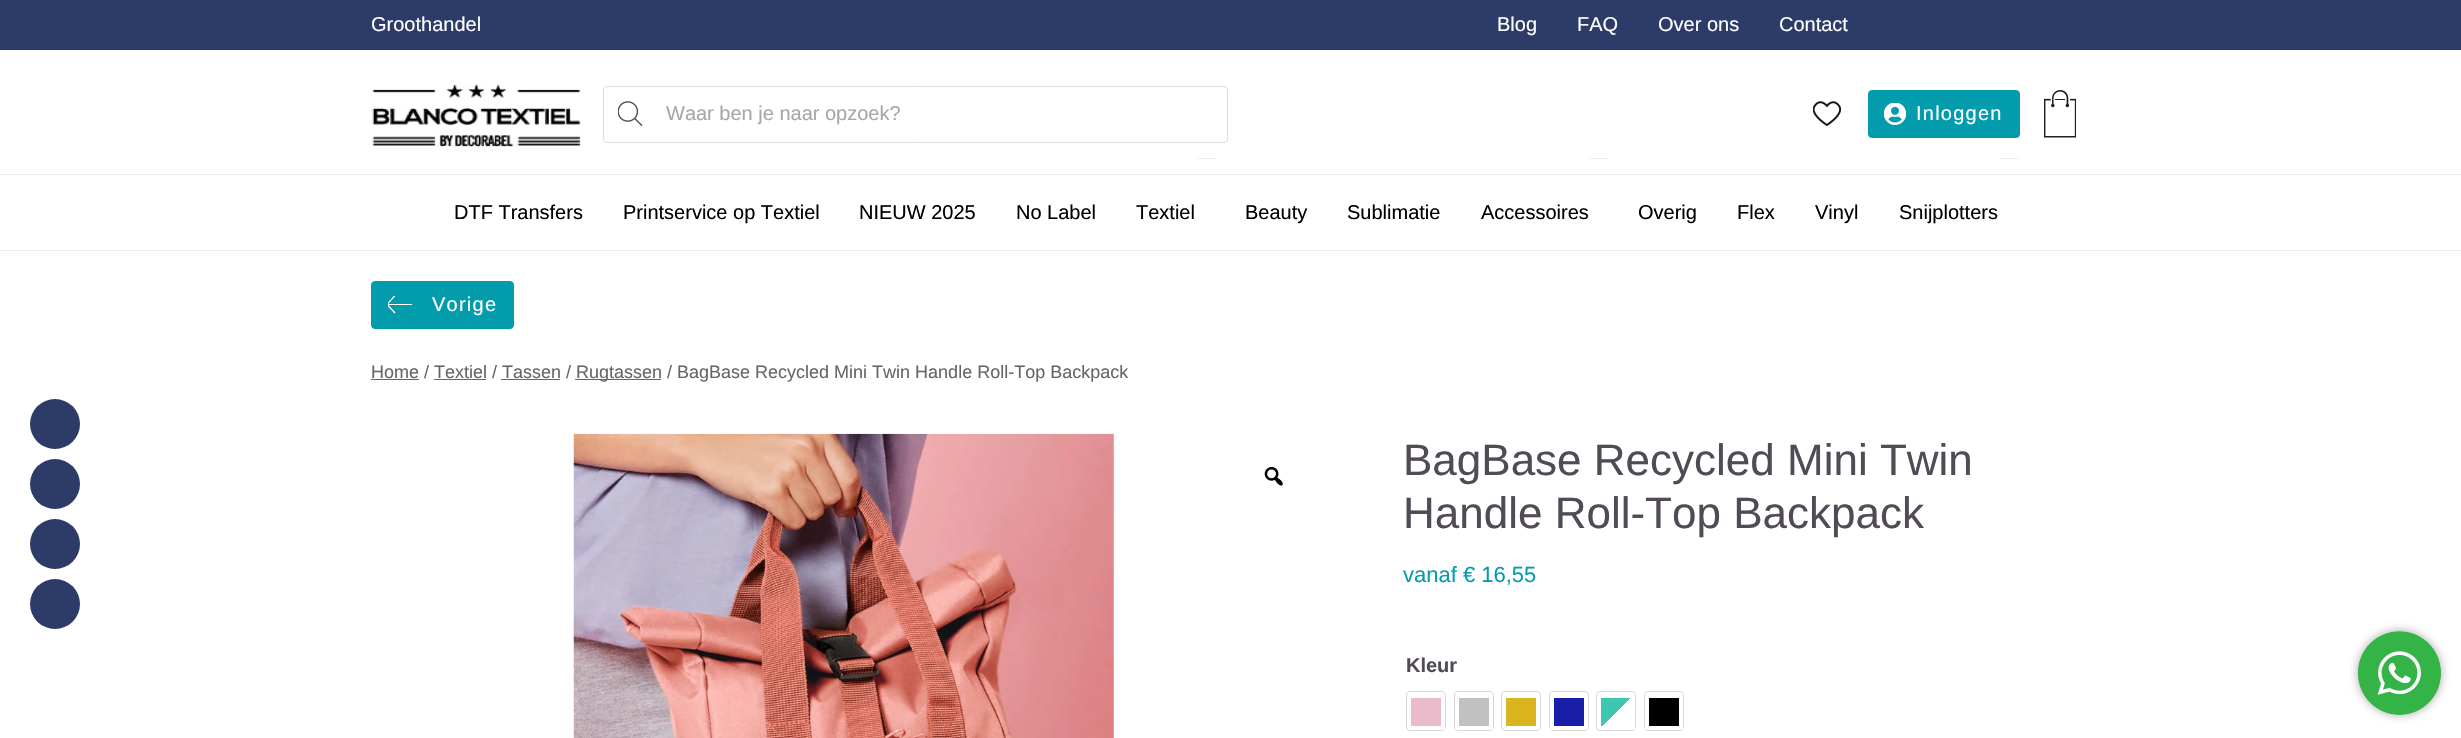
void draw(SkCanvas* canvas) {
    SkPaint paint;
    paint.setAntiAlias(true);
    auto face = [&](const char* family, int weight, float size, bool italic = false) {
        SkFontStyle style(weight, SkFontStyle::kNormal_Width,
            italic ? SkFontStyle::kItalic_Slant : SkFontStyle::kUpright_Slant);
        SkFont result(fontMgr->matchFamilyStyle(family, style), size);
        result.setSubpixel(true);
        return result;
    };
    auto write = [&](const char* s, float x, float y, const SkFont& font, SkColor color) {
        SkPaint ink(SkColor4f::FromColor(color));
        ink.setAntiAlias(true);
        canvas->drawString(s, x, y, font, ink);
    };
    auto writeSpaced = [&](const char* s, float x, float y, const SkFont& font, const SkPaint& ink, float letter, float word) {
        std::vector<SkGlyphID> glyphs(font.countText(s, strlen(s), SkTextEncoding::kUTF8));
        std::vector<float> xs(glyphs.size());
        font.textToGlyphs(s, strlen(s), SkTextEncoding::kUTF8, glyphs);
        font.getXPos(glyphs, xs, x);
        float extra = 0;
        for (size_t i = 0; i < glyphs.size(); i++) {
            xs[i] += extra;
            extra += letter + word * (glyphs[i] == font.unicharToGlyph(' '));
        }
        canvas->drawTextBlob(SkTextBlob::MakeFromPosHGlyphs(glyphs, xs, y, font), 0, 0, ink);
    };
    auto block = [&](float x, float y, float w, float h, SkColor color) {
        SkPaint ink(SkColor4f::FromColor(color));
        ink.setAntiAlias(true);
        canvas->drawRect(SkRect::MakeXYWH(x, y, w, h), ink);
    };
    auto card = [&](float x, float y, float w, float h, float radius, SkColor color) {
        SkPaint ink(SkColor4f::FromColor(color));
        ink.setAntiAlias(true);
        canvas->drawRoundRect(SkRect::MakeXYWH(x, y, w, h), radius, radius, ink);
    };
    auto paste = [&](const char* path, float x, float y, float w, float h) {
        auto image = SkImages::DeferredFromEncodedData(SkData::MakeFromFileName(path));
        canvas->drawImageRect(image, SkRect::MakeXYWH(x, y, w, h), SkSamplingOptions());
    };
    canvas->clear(SK_ColorWHITE);
    block(0, 0, 2461, 50, SkColorSetRGB(44, 59, 103));
    auto kFont1 = face("Liberation Sans", 400, 20);
    write("Groothandel", 371, 31, kFont1, SK_ColorWHITE);
    write("Blog", 1497, 31, kFont1, SK_ColorWHITE);
    write("FAQ", 1577, 31, kFont1, SK_ColorWHITE);
    write("Over ons", 1658, 31, kFont1, SK_ColorWHITE);
    write("Contact", 1779, 31, kFont1, SK_ColorWHITE);
    block(0, 250, 2461, 1, SkColorSetRGB(236, 236, 236));
    paste("pic1.png", 371, 83, 210, 67);
    paint.setStyle(SkPaint::kStroke_Style);
    paint.setStrokeWidth(1);
    paint.setColor(SkColorSetRGB(221, 221, 221));
    canvas->drawRoundRect(SkRect::MakeXYWH(603.5f, 86.5f, 624, 56), 3.5f, 3.5f, paint);
    paste("pic2.png", 618, 101, 25, 25);
    write("Waar ben je naar opzoek?", 666, 120, kFont1, SkColorSetRGB(168, 165, 171));
    paste("pic3.png", 1813, 101, 28, 25);
    paint.setStyle(SkPaint::kFill_Style);
    paint.setColor(SkColorSetRGB(3, 156, 173));
    canvas->drawRoundRect(SkRect::MakeXYWH(1868.5f, 90.5f, 151, 47), 3.5f, 3.5f, paint);
    paint.setStyle(SkPaint::kStroke_Style);
    canvas->drawRoundRect(SkRect::MakeXYWH(1868.5f, 90.5f, 151, 47), 3.5f, 3.5f, paint);
    paste("pic4.png", 1884, 103, 22, 22);
    paint.setStyle(SkPaint::kFill_Style);
    paint.setColor(SK_ColorWHITE);
    writeSpaced("Inloggen", 1916, 120, kFont1, paint, 1.25f, 0);
    paste("pic5.png", 2044, 90, 32, 48);
    block(0, 174, 2461, 1, SkColorSetRGB(236, 236, 236));
    write("DTF Transfers", 454, 219, kFont1, SK_ColorBLACK);
    write("Printservice op Textiel", 623, 219, kFont1, SK_ColorBLACK);
    write("NIEUW 2025", 859, 219, kFont1, SK_ColorBLACK);
    write("No Label", 1016, 219, kFont1, SK_ColorBLACK);
    block(1198, 158, 17, 1, SkColorSetRGB(236, 236, 236));
    write("Textiel", 1136, 219, kFont1, SK_ColorBLACK);
    write("Beauty", 1245, 219, kFont1, SK_ColorBLACK);
    write("Sublimatie", 1347, 219, kFont1, SK_ColorBLACK);
    block(1590, 158, 19, 1, SkColorSetRGB(236, 236, 236));
    write("Accessoires", 1481, 219, kFont1, SK_ColorBLACK);
    write("Overig", 1638, 219, kFont1, SK_ColorBLACK);
    write("Flex", 1737, 219, kFont1, SK_ColorBLACK);
    write("Vinyl", 1815, 219, kFont1, SK_ColorBLACK);
    block(2000, 158, 18, 1, SkColorSetRGB(236, 236, 236));
    write("Snijplotters", 1899, 219, kFont1, SK_ColorBLACK);
    paint.setColor(SkColorSetRGB(44, 59, 103));
    canvas->drawCircle(55, 424, 25, paint);
    canvas->drawCircle(55, 484, 25, paint);
    canvas->drawCircle(55, 544, 25, paint);
    canvas->drawCircle(55, 604, 25, paint);
    paint.setColor(SkColorSetRGB(3, 156, 173));
    canvas->drawRoundRect(SkRect::MakeXYWH(371.5f, 281.5f, 142, 47), 3.5f, 3.5f, paint);
    paint.setStyle(SkPaint::kStroke_Style);
    canvas->drawRoundRect(SkRect::MakeXYWH(371.5f, 281.5f, 142, 47), 3.5f, 3.5f, paint);
    block(388, 304, 24, 1, SK_ColorWHITE);
    canvas->save();
    canvas->clipRect(SkRect::MakeXYWH(388, 296, 25, 19));
    paint.setStrokeWidth(1.3f);
    paint.setColor(SK_ColorWHITE);
    canvas->drawPath(SkPathBuilder().moveTo(395, 313).lineTo(387, 304.5f).lineTo(395, 295.5f).detach(), paint);
    canvas->restore();
    paint.setStyle(SkPaint::kFill_Style);
    writeSpaced("Vorige", 432, 311, kFont1, paint, 1.25f, 0);
    auto kFont2 = face("Liberation Sans", 400, 18);
    write("Home / Textiel / Tassen /", 371, 378, kFont2, SkColorSetRGB(102, 102, 102));
    block(371, 379, 48, 1, SkColorSetRGB(102, 102, 102));
    block(575, 379, 86, 1, SkColorSetRGB(102, 102, 102));
    write("Rugtassen", 576, 378, kFont2, SkColorSetRGB(102, 102, 102));
    write("/ BagBase Recycled Mini Twin Handle Roll-Top Backpack", 667, 378, kFont2, SkColorSetRGB(102, 102, 102));
    block(434, 379, 52, 1, SkColorSetRGB(102, 102, 102));
    block(501, 379, 59, 1, SkColorSetRGB(102, 102, 102));
    paste("pic6.png", 573, 433, 541, 305);
    paste("pic7.png", 1264, 467, 19, 19);
    auto kFont3 = face("Liberation Sans", 400, 44);
    write("BagBase Recycled Mini Twin", 1403, 475, kFont3, SkColorSetRGB(81, 75, 86));
    write("Handle Roll-Top Backpack", 1403, 528, kFont3, SkColorSetRGB(81, 75, 86));
    auto kFont4 = face("Liberation Sans", 400, 22);
    write("vanaf € 16,55", 1403, 582, kFont4, SkColorSetRGB(3, 156, 173));
    auto kFont5 = face("Liberation Sans", 700, 20);
    write("Kleur", 1406, 672, kFont5, SkColorSetRGB(81, 75, 86));
    paint.setStyle(SkPaint::kStroke_Style);
    paint.setStrokeWidth(1);
    paint.setColor(SkColorSetRGB(215, 215, 215));
    canvas->drawRoundRect(SkRect::MakeXYWH(1406.5f, 691.5f, 39, 39), 3.5f, 3.5f, paint);
    card(1408, 693, 37, 37, 2.5f, SK_ColorWHITE);
    block(1411, 698, 30, 28, SkColorSetRGB(234, 187, 203));
    canvas->drawRoundRect(SkRect::MakeXYWH(1454.5f, 691.5f, 39, 39), 3.5f, 3.5f, paint);
    card(1455, 693, 38, 37, 2.5f, SK_ColorWHITE);
    block(1459, 698, 30, 28, SkColorSetRGB(193, 193, 193));
    canvas->drawRoundRect(SkRect::MakeXYWH(1501.5f, 691.5f, 39, 39), 3.5f, 3.5f, paint);
    card(1503, 693, 37, 37, 2.5f, SK_ColorWHITE);
    block(1506, 698, 30, 28, SkColorSetRGB(219, 181, 30));
    canvas->drawRoundRect(SkRect::MakeXYWH(1549.5f, 691.5f, 39, 39), 3.5f, 3.5f, paint);
    card(1550, 693, 38, 37, 2.5f, SK_ColorWHITE);
    block(1554, 698, 30, 28, SkColorSetRGB(25, 30, 168));
    canvas->drawRoundRect(SkRect::MakeXYWH(1596.5f, 691.5f, 39, 39), 3.5f, 3.5f, paint);
    card(1598, 693, 37, 37, 2.5f, SK_ColorWHITE);
    paint.setStyle(SkPaint::kFill_Style);
    {
        const SkColor colors[] = {SK_ColorWHITE, SK_ColorWHITE, SkColorSetRGB(61, 198, 176), SkColorSetRGB(61, 198, 176)};
        const float stops[] = {0, 0.5f, 0.5f, 1};
        const SkPoint ends[] = {{1631, 727}, {1602, 697}};
        paint.setShader(SkGradientShader::MakeLinear(ends, colors, stops, 4, SkTileMode::kClamp));
        paint.setAlpha(255);
    }
    canvas->drawRect(SkRect::MakeXYWH(1601, 698, 29, 28), paint);
    paint.setStyle(SkPaint::kStroke_Style);
    paint.setShader(nullptr);
    paint.setColor(SkColorSetRGB(215, 215, 215));
    canvas->drawRoundRect(SkRect::MakeXYWH(1644.5f, 691.5f, 39, 39), 3.5f, 3.5f, paint);
    card(1645, 693, 38, 37, 2.5f, SK_ColorWHITE);
    block(1649, 698, 30, 28, SK_ColorBLACK);
    paint.setStyle(SkPaint::kFill_Style);
    paint.setColor(SkColorSetARGB(89, 0, 0, 0));
    paint.setMaskFilter(SkMaskFilter::MakeBlur(kNormal_SkBlurStyle, 5));
    canvas->drawRoundRect(SkRect::MakeXYWH(2358, 631, 83, 84), 41.5f, 41.5f, paint);
    paint.setMaskFilter(nullptr);
    paste("pic8.png", 2358, 631, 83, 84);
}
